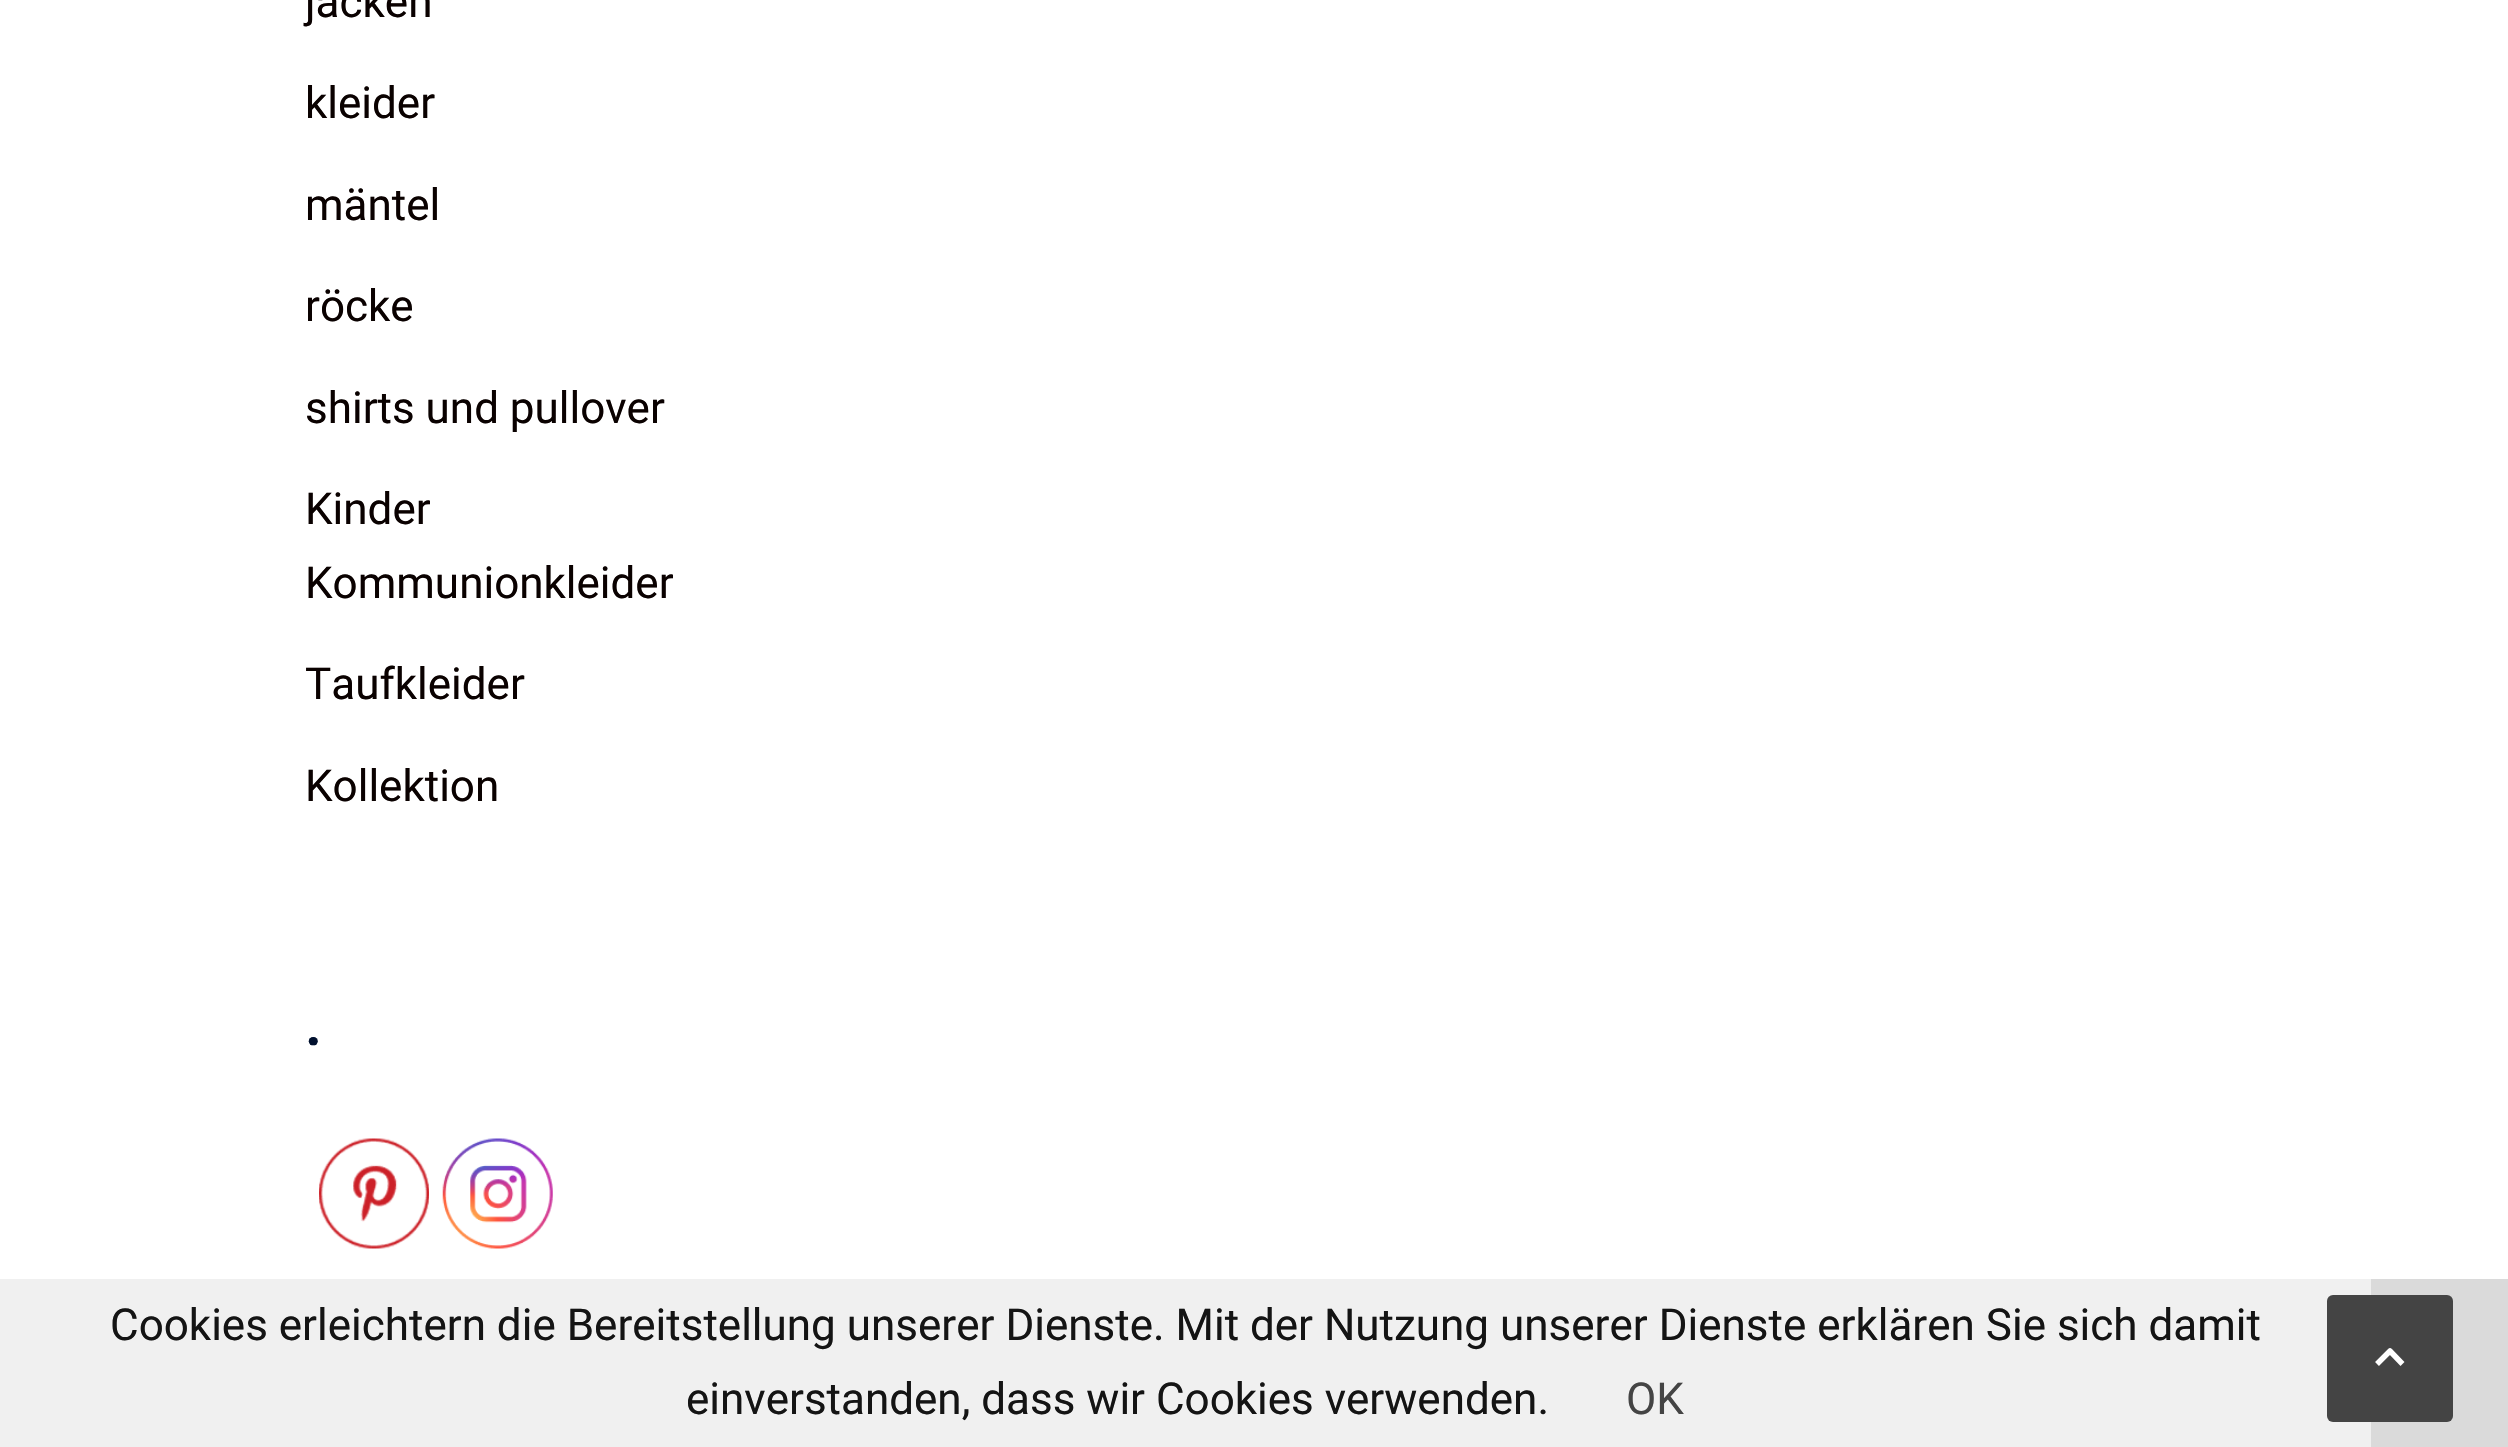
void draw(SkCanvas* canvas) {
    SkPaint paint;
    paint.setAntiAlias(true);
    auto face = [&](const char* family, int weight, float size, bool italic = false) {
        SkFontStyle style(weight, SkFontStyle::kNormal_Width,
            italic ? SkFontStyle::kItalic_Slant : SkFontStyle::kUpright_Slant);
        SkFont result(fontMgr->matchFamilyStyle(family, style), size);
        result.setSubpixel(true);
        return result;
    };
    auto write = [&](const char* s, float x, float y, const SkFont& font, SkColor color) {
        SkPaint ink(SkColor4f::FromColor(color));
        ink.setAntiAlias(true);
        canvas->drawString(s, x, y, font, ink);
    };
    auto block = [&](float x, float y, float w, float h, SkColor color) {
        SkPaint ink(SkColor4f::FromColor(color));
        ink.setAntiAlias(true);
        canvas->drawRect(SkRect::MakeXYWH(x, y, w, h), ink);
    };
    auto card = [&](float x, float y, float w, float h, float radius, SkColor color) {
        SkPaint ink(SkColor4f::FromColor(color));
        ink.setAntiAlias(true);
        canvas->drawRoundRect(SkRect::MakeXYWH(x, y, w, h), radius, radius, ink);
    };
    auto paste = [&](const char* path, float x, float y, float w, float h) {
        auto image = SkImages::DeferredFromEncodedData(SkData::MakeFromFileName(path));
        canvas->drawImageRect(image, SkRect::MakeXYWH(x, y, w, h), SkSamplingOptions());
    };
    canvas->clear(SK_ColorWHITE);
    auto kFont1 = face("Roboto", 400, 44);
    write("jacken", 305, 17, kFont1, SkColorSetRGB(10, 1, 0));
    write("kleider", 305, 118, kFont1, SkColorSetRGB(10, 1, 0));
    write("mäntel", 305, 220, kFont1, SkColorSetRGB(10, 1, 0));
    write("röcke", 305, 321, kFont1, SkColorSetRGB(10, 1, 0));
    write("shirts und pullover", 305, 423, kFont1, SkColorSetRGB(10, 1, 0));
    write("Kinder", 305, 524, kFont1, SkColorSetRGB(10, 1, 0));
    write("Kommunionkleider", 305, 598, kFont1, SkColorSetRGB(10, 1, 0));
    write("Taufkleider", 305, 699, kFont1, SkColorSetRGB(10, 1, 0));
    write("Kollektion", 305, 801, kFont1, SkColorSetRGB(10, 1, 0));
    auto kFont2 = face("Roboto", 600, 60);
    write(".", 305, 1045, kFont2, SkColorSetRGB(0, 16, 46));
    paste("pic1.png", 319, 1138, 110, 111);
    paste("pic2.png", 442, 1138, 111, 111);
    block(0, 1279, 2371, 168, SkColorSetRGB(240, 240, 240));
    write("Cookies erleichtern die Bereitstellung unserer Dienste. Mit der Nutzung unserer Dienste erklären Sie sich damit", 110, 1340, kFont1, SkColorSetRGB(20, 20, 20));
    write("einverstanden, dass wir Cookies verwenden.", 686, 1414, kFont1, SkColorSetRGB(20, 20, 20));
    write("OK", 1626, 1414, kFont1, SkColorSetRGB(68, 68, 68));
    block(2371, 1279, 137, 168, SkColorSetRGB(218, 218, 218));
    card(2327, 1295, 126, 127, 6, SkColorSetRGB(68, 68, 68));
    paint.setStyle(SkPaint::kStroke_Style);
    paint.setStrokeWidth(5.5f);
    paint.setStrokeJoin(SkPaint::kRound_Join);
    paint.setColor(SK_ColorWHITE);
    canvas->drawPath(SkPathBuilder().moveTo(2377, 1364).lineTo(2390, 1351).lineTo(2402.5f, 1364).detach(), paint);
}
